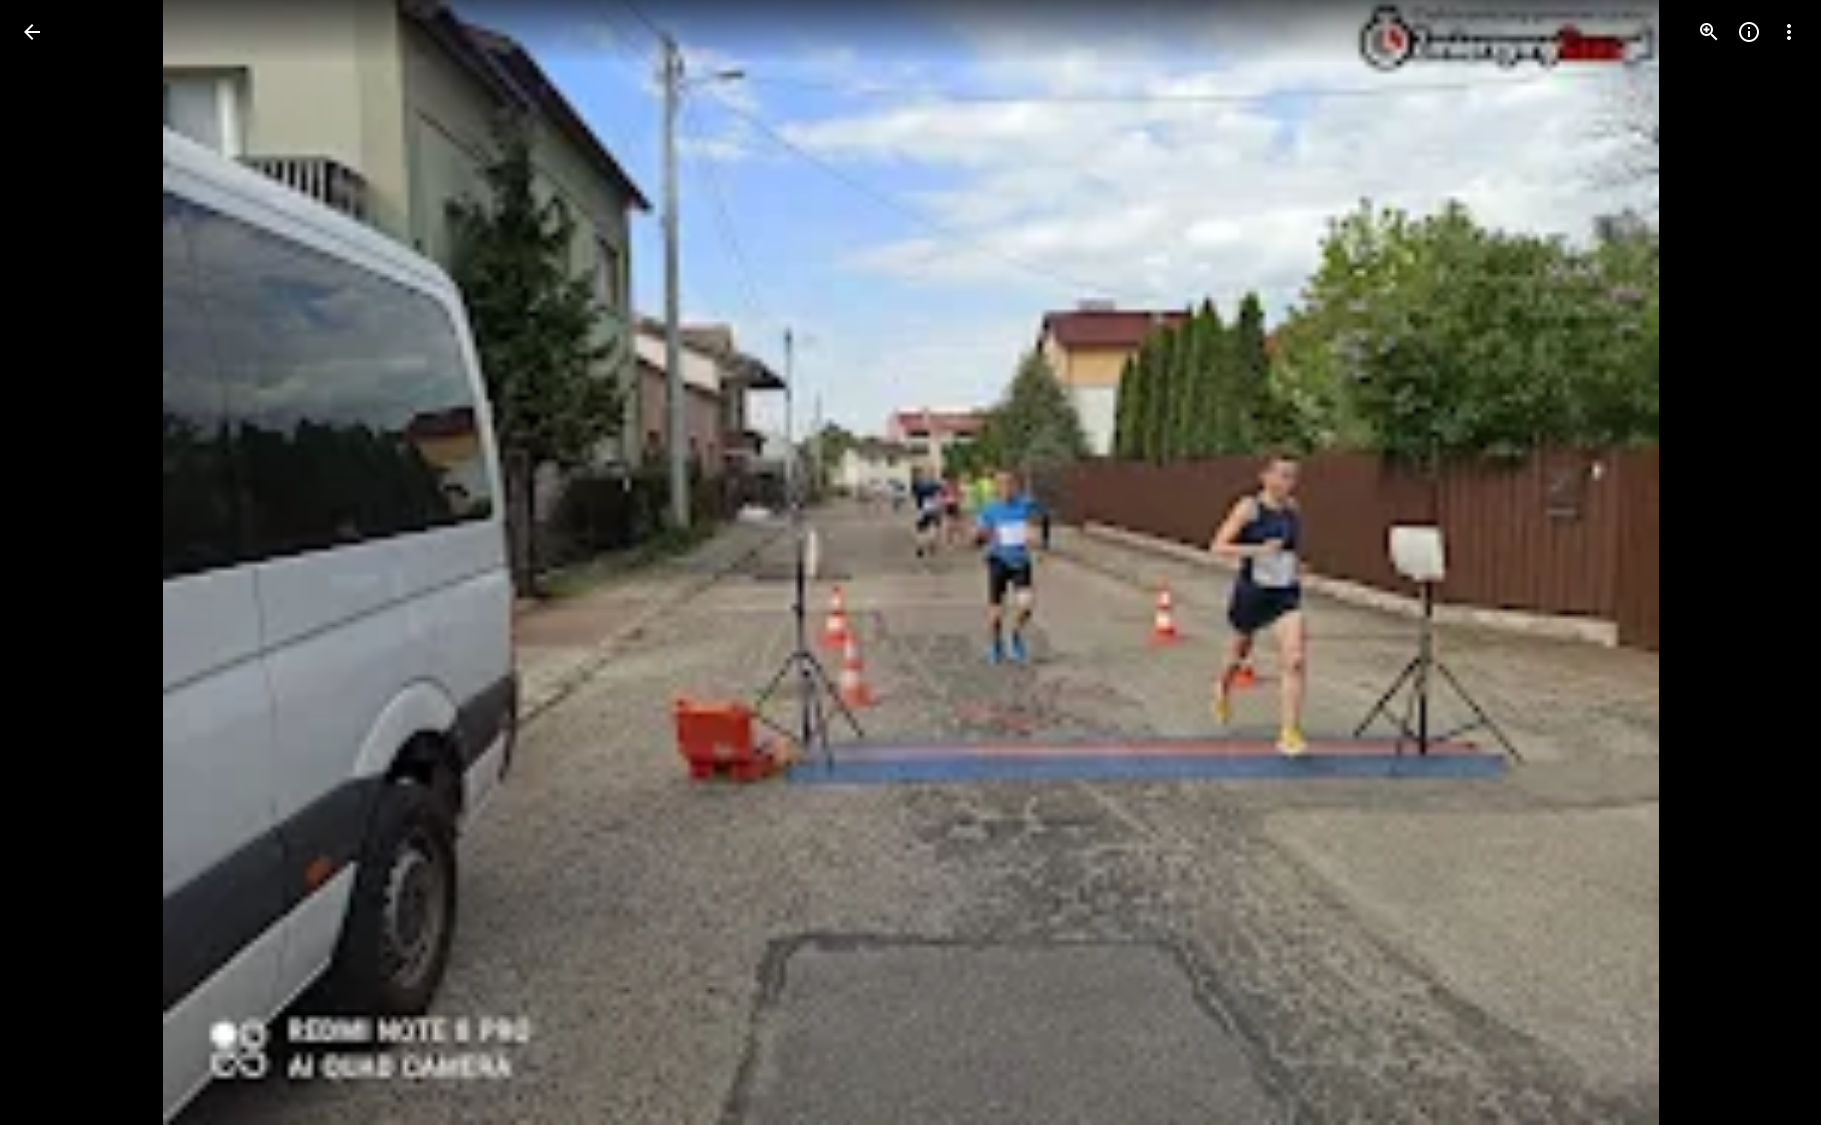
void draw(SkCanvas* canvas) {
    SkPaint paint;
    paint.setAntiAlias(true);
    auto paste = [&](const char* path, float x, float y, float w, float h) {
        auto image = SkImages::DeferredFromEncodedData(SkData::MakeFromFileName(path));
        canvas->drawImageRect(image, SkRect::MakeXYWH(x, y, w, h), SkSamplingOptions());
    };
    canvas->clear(SK_ColorBLACK);
    paste("pic5.png", 163, 0, 1496, 1125);
    {
        const SkColor colors[] = {SkColorSetARGB(153, 0, 0, 0), SkColorSetARGB(0, 0, 0, 0)};
        const float stops[] = {0, 1};
        const SkPoint ends[] = {{911, 0}, {911, 64}};
        paint.setShader(SkGradientShader::MakeLinear(ends, colors, stops, 2, SkTileMode::kClamp));
        paint.setAlpha(255);
    }
    canvas->drawRect(SkRect::MakeXYWH(163, 0, 1496, 62), paint);
    paste("pic1.png", 24, 24, 16, 16);
    paste("pic2.png", 1700, 23, 18, 18);
    paste("pic3.png", 1739, 22, 20, 20);
    paste("pic4.png", 1787, 24, 4, 16);
}
